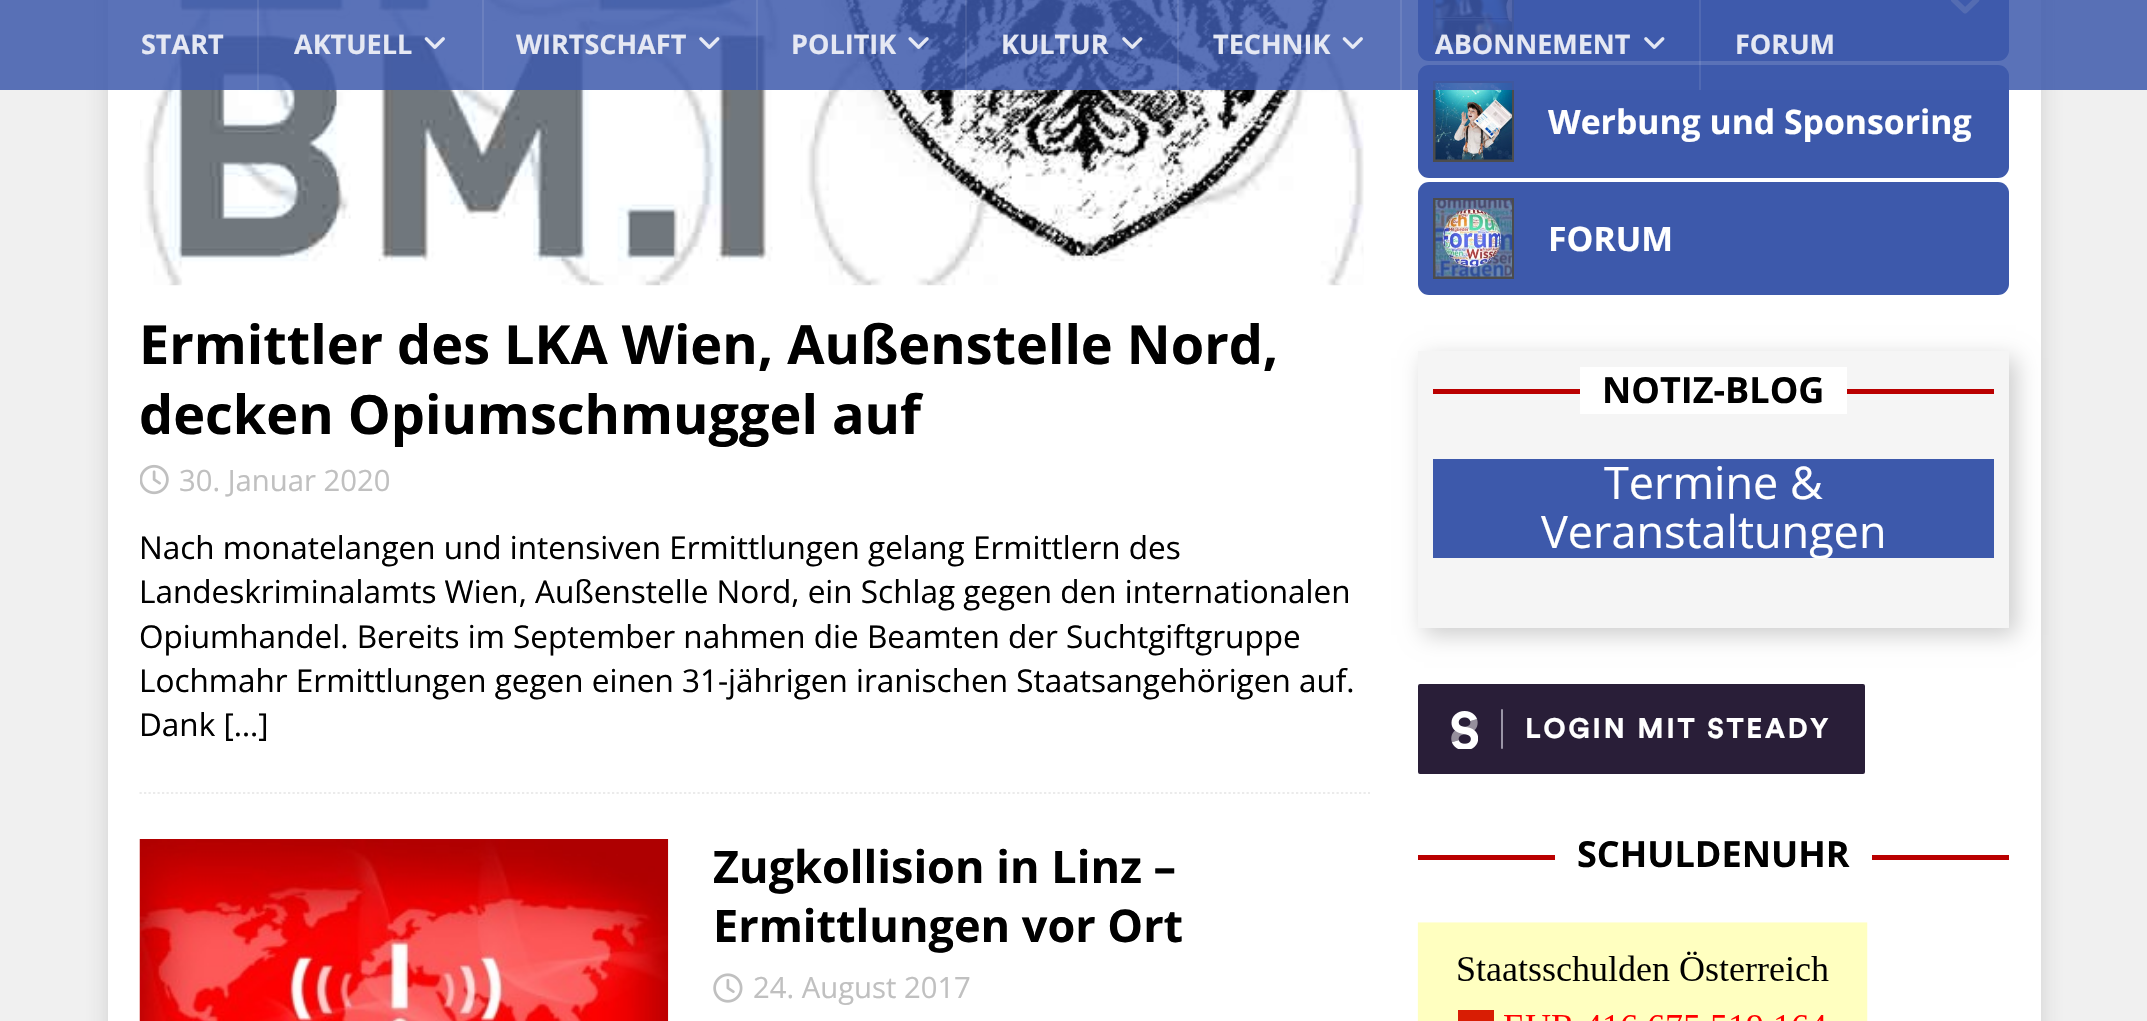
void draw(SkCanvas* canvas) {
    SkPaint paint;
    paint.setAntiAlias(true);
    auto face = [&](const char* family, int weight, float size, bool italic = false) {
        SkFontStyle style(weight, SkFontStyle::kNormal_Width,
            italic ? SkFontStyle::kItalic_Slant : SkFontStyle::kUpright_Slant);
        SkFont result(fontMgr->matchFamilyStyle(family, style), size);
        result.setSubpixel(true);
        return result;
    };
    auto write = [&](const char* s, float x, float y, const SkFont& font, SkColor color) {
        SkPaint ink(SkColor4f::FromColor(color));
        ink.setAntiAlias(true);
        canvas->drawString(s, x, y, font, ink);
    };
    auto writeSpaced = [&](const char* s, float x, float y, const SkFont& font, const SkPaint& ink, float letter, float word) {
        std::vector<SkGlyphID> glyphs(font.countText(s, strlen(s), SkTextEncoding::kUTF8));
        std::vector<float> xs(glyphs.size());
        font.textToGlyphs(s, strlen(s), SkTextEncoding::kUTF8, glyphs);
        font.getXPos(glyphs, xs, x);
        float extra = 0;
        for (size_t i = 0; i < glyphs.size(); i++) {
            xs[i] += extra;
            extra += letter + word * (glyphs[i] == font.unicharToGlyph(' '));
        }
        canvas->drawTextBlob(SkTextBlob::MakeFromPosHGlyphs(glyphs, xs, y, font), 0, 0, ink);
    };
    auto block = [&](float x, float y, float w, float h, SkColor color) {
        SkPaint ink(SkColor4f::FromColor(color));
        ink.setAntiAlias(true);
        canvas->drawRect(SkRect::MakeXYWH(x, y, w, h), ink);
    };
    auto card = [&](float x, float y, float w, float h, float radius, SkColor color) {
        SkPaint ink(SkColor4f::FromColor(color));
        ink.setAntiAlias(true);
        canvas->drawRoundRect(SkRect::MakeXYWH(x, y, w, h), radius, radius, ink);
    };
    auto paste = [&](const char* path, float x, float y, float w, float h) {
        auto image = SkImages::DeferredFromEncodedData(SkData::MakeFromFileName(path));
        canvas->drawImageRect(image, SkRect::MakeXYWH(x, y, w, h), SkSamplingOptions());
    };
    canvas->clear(SkColorSetRGB(240, 240, 240));
    paint.setColor(SkColorSetARGB(43, 50, 50, 50));
    paint.setMaskFilter(SkMaskFilter::MakeBlur(kNormal_SkBlurStyle, 11));
    canvas->drawRect(SkRect::MakeXYWH(108, -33, 1933, 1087), paint);
    paint.setMaskFilter(nullptr);
    block(108, 0, 1933, 1021, SK_ColorWHITE);
    paste("pic7.png", 140, 0, 1224, 286);
    card(1418, -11, 591, 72, 11, SkColorSetRGB(61, 89, 171));
    block(1433, 0, 81, 45, SkColorSetRGB(76, 76, 76));
    paste("pic11.png", 1435, 0, 77, 43);
    paste("pic12.png", 1950, 0, 30, 14);
    card(1418, 65, 591, 113, 11, SkColorSetRGB(61, 89, 171));
    block(1433, 81, 81, 81, SkColorSetRGB(76, 76, 76));
    paste("pic13.png", 1435, 83, 77, 77);
    block(0, 0, 2147, 90, SkColorSetARGB(217, 61, 89, 171));
    auto kFont1 = face("Open Sans", 700, 27);
    write("START", 141, 54, kFont1, SkColorSetRGB(229, 232, 243));
    block(257, 0, 2, 90, SkColorSetARGB(23, 255, 255, 255));
    write("AKTUELL", 294, 54, kFont1, SkColorSetRGB(229, 232, 243));
    paste("pic1.png", 424, 37, 21, 12);
    block(482, 0, 2, 90, SkColorSetRGB(107, 128, 191));
    write("WIRTSCHAFT", 516, 54, kFont1, SkColorSetRGB(229, 232, 243));
    paste("pic2.png", 699, 37, 21, 12);
    block(756, 0, 2, 90, SkColorSetARGB(23, 255, 255, 255));
    write("POLITIK", 791, 54, kFont1, SkColorSetRGB(229, 232, 243));
    paste("pic3.png", 908, 37, 21, 12);
    block(965, 0, 2, 90, SkColorSetARGB(23, 255, 255, 255));
    write("KULTUR", 1001, 54, kFont1, SkColorSetRGB(229, 232, 243));
    paste("pic4.png", 1122, 37, 21, 12);
    block(1177, 0, 2, 90, SkColorSetARGB(23, 255, 255, 255));
    write("TECHNIK", 1213, 54, kFont1, SkColorSetRGB(229, 232, 243));
    paste("pic5.png", 1342, 37, 21, 12);
    block(1400, 0, 2, 90, SkColorSetRGB(107, 128, 191));
    write("ABONNEMENT", 1435, 54, kFont1, SkColorSetRGB(229, 232, 243));
    paste("pic6.png", 1644, 37, 21, 12);
    block(1699, 0, 2, 90, SkColorSetARGB(23, 255, 255, 255));
    write("FORUM", 1735, 54, kFont1, SkColorSetRGB(229, 232, 243));
    paint.setStyle(SkPaint::kStroke_Style);
    paint.setStrokeWidth(2.2f);
    paint.setColor(SkColorSetRGB(235, 235, 235));
    paint.setPathEffect(SkDashPathEffect::Make({{2.25f, 2.25f}}, 0));
    canvas->drawPath(SkPathBuilder().moveTo(139.5f, 793).lineTo(1370, 793).detach(), paint);
    paint.setPathEffect(nullptr);
    auto kFont2 = face("Open Sans", 700, 54);
    write("Ermittler des LKA Wien, Außenstelle Nord,", 139, 364, kFont2, SK_ColorBLACK);
    write("decken Opiumschmuggel auf", 139, 434, kFont2, SK_ColorBLACK);
    paste("pic8.png", 140, 464, 29, 31);
    auto kFont3 = face("Open Sans", 400, 29.25f);
    write("30. Januar 2020", 179, 491, kFont3, SkColorSetRGB(192, 192, 192));
    auto kFont4 = face("Open Sans", 400, 31.5f);
    write("Nach monatelangen und intensiven Ermittlungen gelang Ermittlern des", 139, 559, kFont4, SK_ColorBLACK);
    write("Landeskriminalamts Wien, Außenstelle Nord, ein Schlag gegen den internationalen", 139, 603, kFont4, SK_ColorBLACK);
    write("Opiumhandel. Bereits im September nahmen die Beamten der Suchtgiftgruppe", 139, 648, kFont4, SK_ColorBLACK);
    write("Lochmahr Ermittlungen gegen einen 31-jährigen iranischen Staatsangehörigen auf.", 139, 692, kFont4, SK_ColorBLACK);
    write("Dank […]", 139, 736, kFont4, SK_ColorBLACK);
    paste("pic9.png", 139, 839, 530, 182);
    auto kFont5 = face("Open Sans", 700, 45);
    write("Zugkollision in Linz –", 713, 883, kFont5, SK_ColorBLACK);
    write("Ermittlungen vor Ort", 713, 942, kFont5, SK_ColorBLACK);
    paste("pic10.png", 713, 973, 30, 30);
    write("24. August 2017", 753, 998, kFont3, SkColorSetRGB(192, 192, 192));
    auto kFont6 = face("Open Sans", 700, 33.75f);
    write("Werbung und Sponsoring", 1548, 134, kFont6, SK_ColorWHITE);
    card(1418, 182, 591, 113, 11, SkColorSetRGB(61, 89, 171));
    block(1433, 198, 81, 81, SkColorSetRGB(76, 76, 76));
    paste("pic14.png", 1435, 200, 77, 77);
    write("FORUM", 1548, 251, kFont6, SK_ColorWHITE);
    paint.setStyle(SkPaint::kFill_Style);
    paint.setColor(SkColorSetARGB(51, 0, 0, 0));
    paint.setMaskFilter(SkMaskFilter::MakeBlur(kNormal_SkBlurStyle, 11));
    canvas->drawRect(SkRect::MakeXYWH(1424, 358, 592, 277), paint);
    paint.setMaskFilter(nullptr);
    block(1418, 351, 591, 277, SkColorSetRGB(245, 245, 245));
    block(1433, 389, 561, 5, SkColorSetRGB(186, 0, 0));
    block(1580, 367, 267, 47, SK_ColorWHITE);
    auto kFont7 = face("Open Sans", 700, 36);
    write("NOTIZ-BLOG", 1602, 403, kFont7, SK_ColorBLACK);
    block(1433, 459, 561, 99, SkColorSetRGB(61, 89, 171));
    auto kFont8 = face("Open Sans", 400, 45);
    write("Termine &", 1604, 499, kFont8, SK_ColorWHITE);
    write("Veranstaltungen", 1541, 548, kFont8, SK_ColorWHITE);
    paint.setColor(SkColorSetRGB(41, 30, 56));
    canvas->drawRoundRect(SkRect::MakeXYWH(1419, 685, 445, 88), 1, 1, paint);
    paint.setStyle(SkPaint::kStroke_Style);
    paint.setStrokeWidth(2);
    canvas->drawRoundRect(SkRect::MakeXYWH(1419, 685, 445, 88), 1, 1, paint);
    paste("pic15.png", 1451, 711, 27, 38);
    card(1501, 709, 2, 40, 1, SkColorSetRGB(154, 149, 166));
    auto kFont9 = face("Circular", 700, 27);
    paint.setStyle(SkPaint::kFill_Style);
    paint.setColor(SK_ColorWHITE);
    writeSpaced("LOGIN MIT STEADY", 1525, 738, kFont9, paint, 3.25f, 0);
    block(1418, 855, 591, 5, SkColorSetRGB(186, 0, 0));
    block(1555, 855, 317, 5, SK_ColorWHITE);
    write("SCHULDENUHR", 1577, 867, kFont7, SK_ColorBLACK);
    paste("pic16.png", 1417, 922, 451, 99);
}
